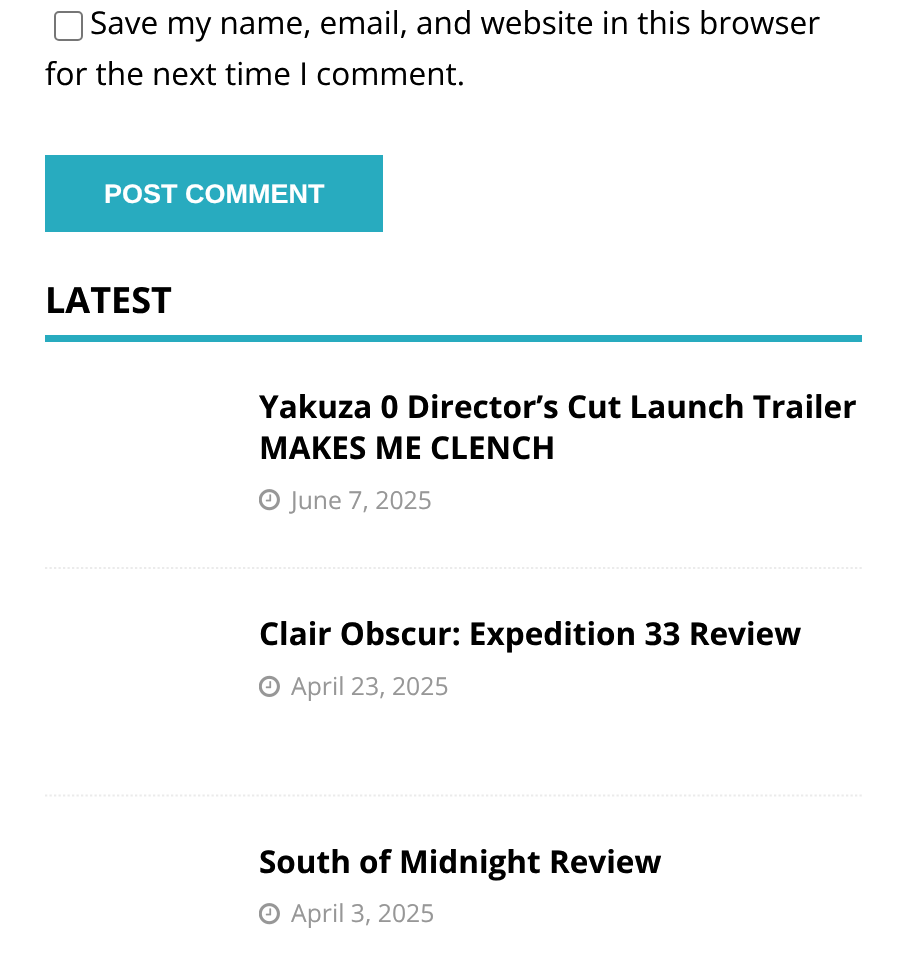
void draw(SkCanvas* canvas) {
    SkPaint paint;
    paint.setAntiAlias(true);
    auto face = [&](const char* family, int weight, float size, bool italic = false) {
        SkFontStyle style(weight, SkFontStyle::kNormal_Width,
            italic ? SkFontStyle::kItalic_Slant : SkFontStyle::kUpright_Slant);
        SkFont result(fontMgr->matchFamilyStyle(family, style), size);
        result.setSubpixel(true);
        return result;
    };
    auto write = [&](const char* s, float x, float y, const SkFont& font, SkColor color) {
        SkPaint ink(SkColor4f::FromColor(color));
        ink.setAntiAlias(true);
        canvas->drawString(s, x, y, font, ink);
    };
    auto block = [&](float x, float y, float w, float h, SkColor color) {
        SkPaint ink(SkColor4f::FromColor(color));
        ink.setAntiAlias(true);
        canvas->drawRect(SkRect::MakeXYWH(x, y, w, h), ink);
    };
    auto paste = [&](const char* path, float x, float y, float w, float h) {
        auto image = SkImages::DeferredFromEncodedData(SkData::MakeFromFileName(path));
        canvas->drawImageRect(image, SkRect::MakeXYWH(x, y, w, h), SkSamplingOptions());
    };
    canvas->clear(SK_ColorWHITE);
    paint.setStyle(SkPaint::kStroke_Style);
    paint.setStrokeWidth(2);
    paint.setColor(SkColorSetRGB(118, 118, 118));
    canvas->drawRoundRect(SkRect::MakeXYWH(55, 12, 27, 28), 4, 4, paint);
    auto kFont1 = face("Open Sans", 400, 31.5f);
    write("Save my name, email, and website in this browser", 90, 34, kFont1, SK_ColorBLACK);
    write("for the next time I comment.", 45, 85, kFont1, SK_ColorBLACK);
    block(45, 155, 338, 77, SkColorSetRGB(40, 171, 191));
    auto kFont2 = face("Liberation Sans", 700, 27);
    write("POST COMMENT", 104, 203, kFont2, SK_ColorWHITE);
    block(45, 335, 817, 7, SkColorSetRGB(40, 171, 191));
    auto kFont3 = face("Open Sans", 700, 36);
    write("LATEST", 45, 313, kFont3, SK_ColorBLACK);
    paint.setStrokeWidth(2.2f);
    paint.setColor(SkColorSetRGB(235, 235, 235));
    paint.setPathEffect(SkDashPathEffect::Make({{2.25f, 2.25f}}, 0));
    canvas->drawPath(SkPathBuilder().moveTo(45, 568).lineTo(862, 568).detach(), paint);
    paint.setPathEffect(nullptr);
    auto kFont4 = face("Open Sans", 700, 31.5f);
    write("Yakuza 0 Director’s Cut Launch Trailer", 259, 418, kFont4, SK_ColorBLACK);
    write("MAKES ME CLENCH", 259, 459, kFont4, SK_ColorBLACK);
    paste("pic1.png", 259, 489, 21, 22);
    auto kFont5 = face("Open Sans", 400, 24.75f);
    write("June 7, 2025", 291, 509, kFont5, SkColorSetRGB(151, 151, 151));
    paint.setPathEffect(SkDashPathEffect::Make({{2.25f, 2.25f}}, 0));
    canvas->drawPath(SkPathBuilder().moveTo(45, 795.5f).lineTo(862, 795.5f).detach(), paint);
    paint.setPathEffect(nullptr);
    write("Clair Obscur: Expedition 33 Review", 259, 645, kFont4, SK_ColorBLACK);
    paste("pic2.png", 259, 675, 21, 22);
    write("April 23, 2025", 291, 695, kFont5, SkColorSetRGB(151, 151, 151));
    write("South of Midnight Review", 259, 873, kFont4, SK_ColorBLACK);
    paste("pic1.png", 259, 903, 21, 22);
    write("April 3, 2025", 291, 922, kFont5, SkColorSetRGB(151, 151, 151));
}
